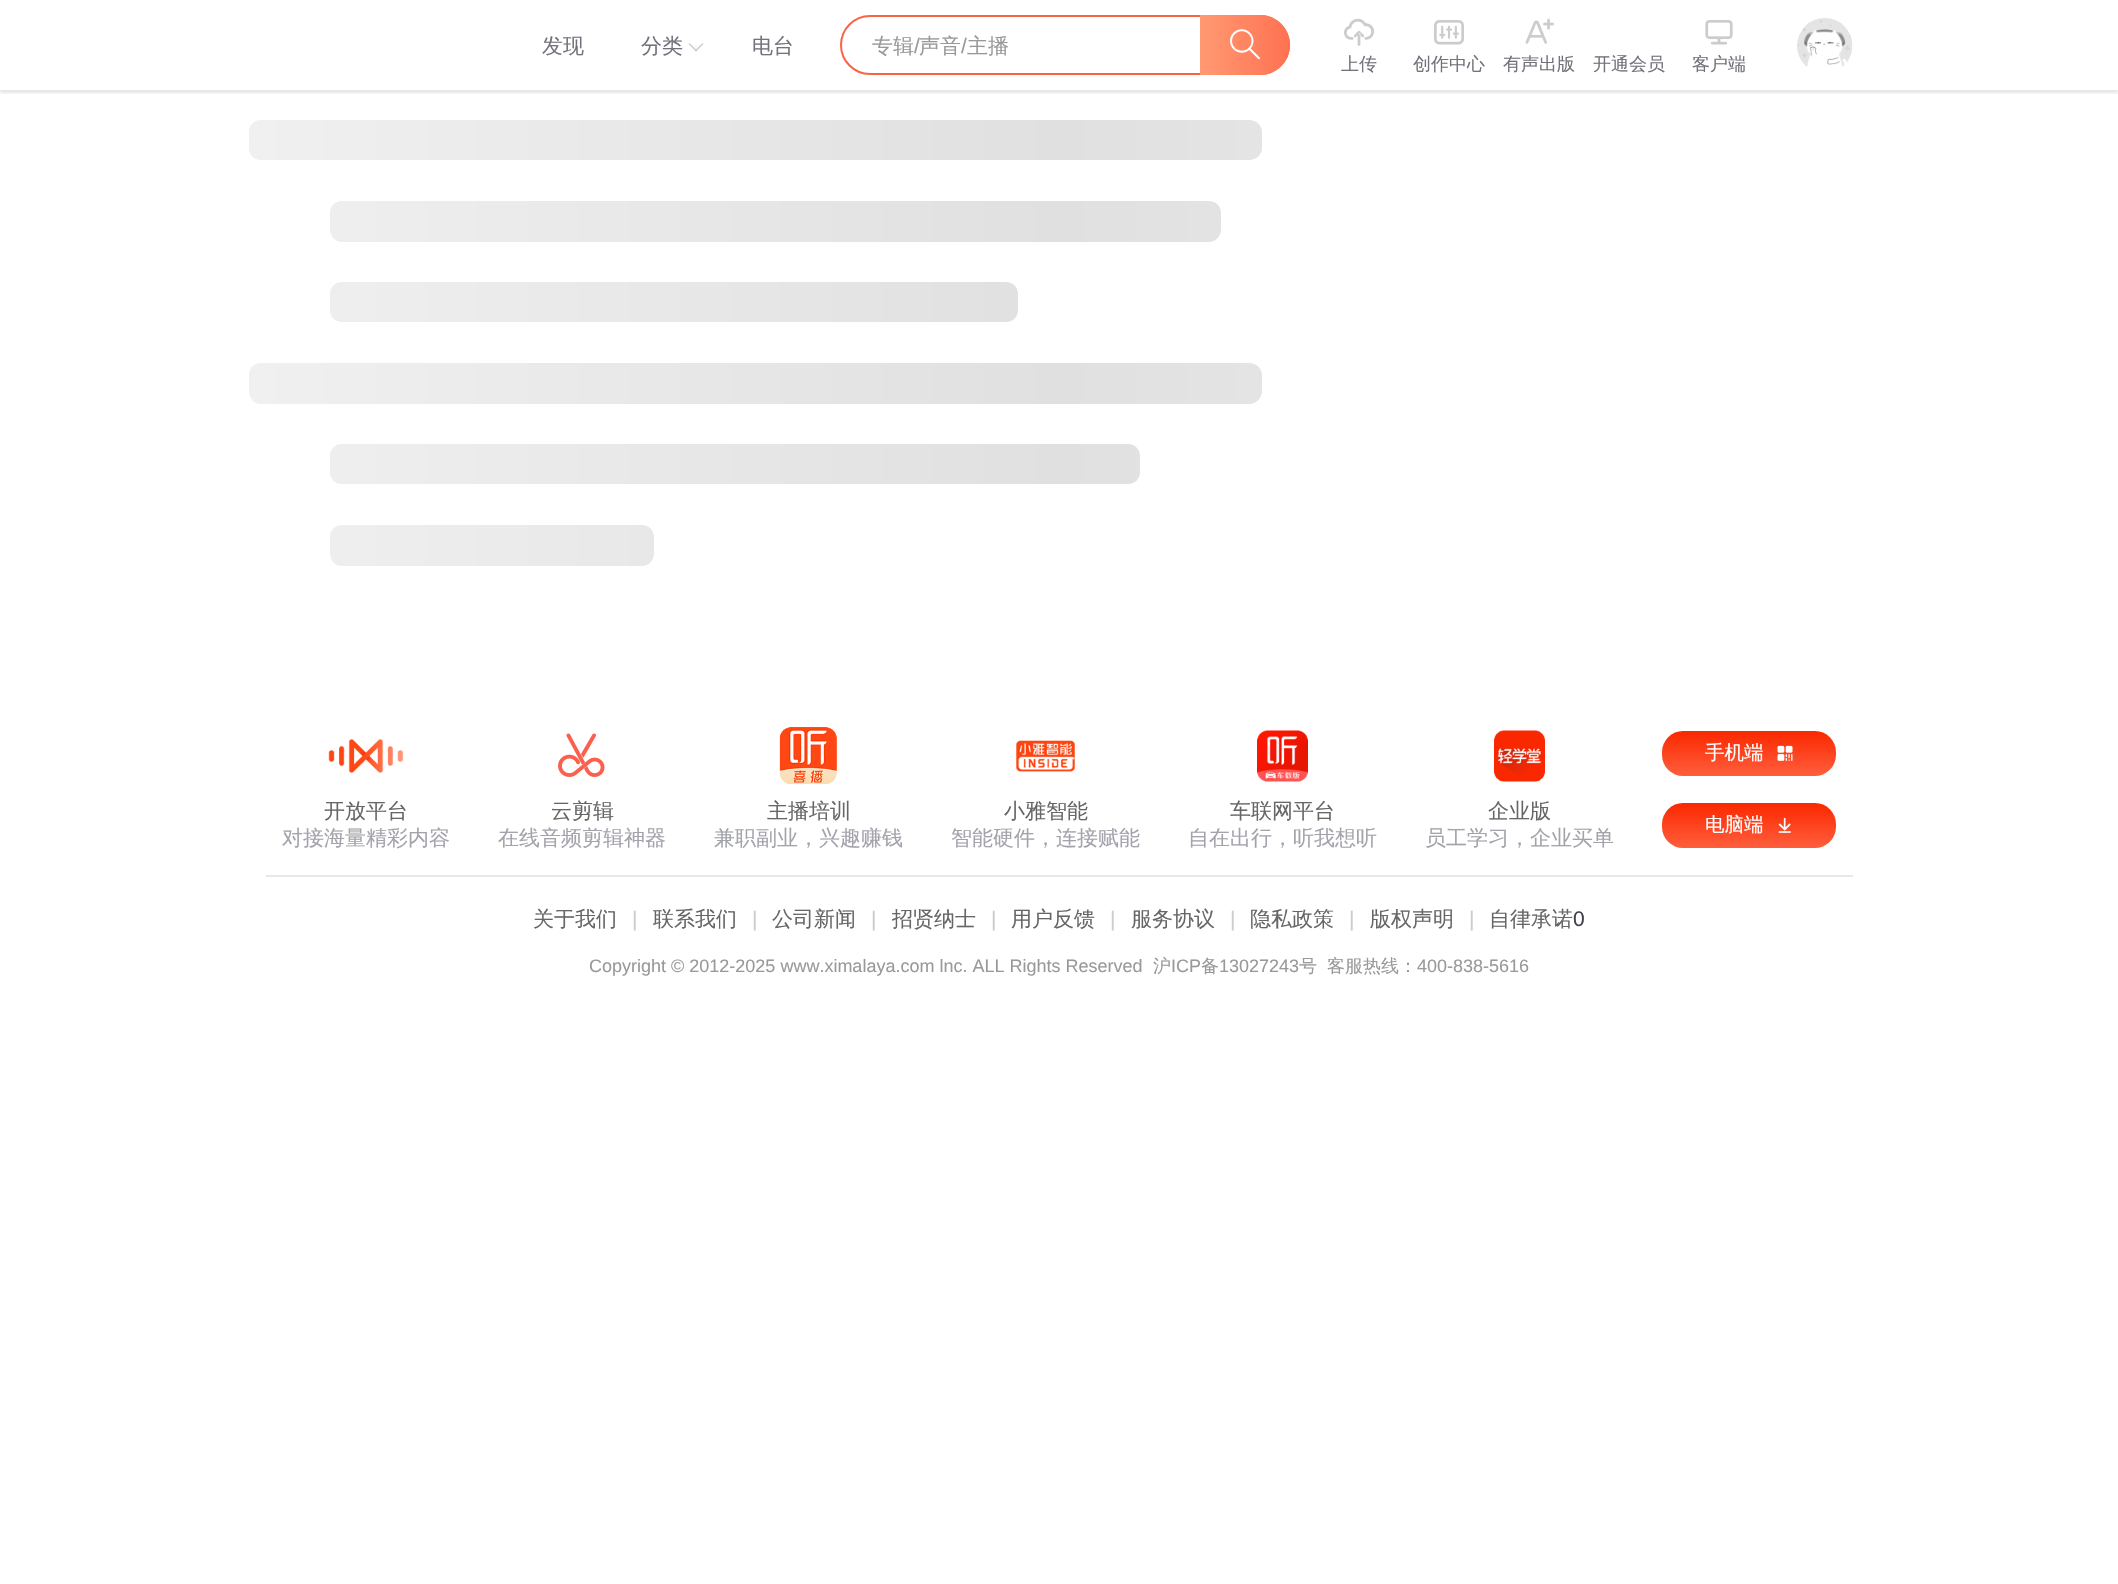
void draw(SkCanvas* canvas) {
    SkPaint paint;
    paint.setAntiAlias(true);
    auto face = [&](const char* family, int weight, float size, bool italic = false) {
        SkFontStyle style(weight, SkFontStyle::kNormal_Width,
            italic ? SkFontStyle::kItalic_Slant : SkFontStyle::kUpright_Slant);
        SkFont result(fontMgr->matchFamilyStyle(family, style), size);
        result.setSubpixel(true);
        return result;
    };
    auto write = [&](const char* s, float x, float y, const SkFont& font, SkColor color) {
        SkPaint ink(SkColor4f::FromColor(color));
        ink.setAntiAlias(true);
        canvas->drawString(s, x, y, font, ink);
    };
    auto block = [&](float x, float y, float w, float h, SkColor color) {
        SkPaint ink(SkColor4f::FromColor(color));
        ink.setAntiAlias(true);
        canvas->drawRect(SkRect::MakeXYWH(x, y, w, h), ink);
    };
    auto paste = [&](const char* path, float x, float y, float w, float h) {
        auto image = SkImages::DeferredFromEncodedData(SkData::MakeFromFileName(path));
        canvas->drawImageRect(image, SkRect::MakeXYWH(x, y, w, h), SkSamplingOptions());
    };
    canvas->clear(SK_ColorWHITE);
    canvas->save();
    canvas->clipRect(SkRect::MakeXYWH(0, 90, 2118, 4));
    paint.setColor(SkColorSetARGB(26, 0, 0, 0));
    paint.setMaskFilter(SkMaskFilter::MakeBlur(kNormal_SkBlurStyle, 1.5f));
    canvas->drawRect(SkRect::MakeXYWH(0, 3, 2118, 90), paint);
    paint.setMaskFilter(nullptr);
    canvas->restore();
    auto kFont1 = face("WenQuanYi Zen Hei", 500, 21);
    write("发现", 542, 53, kFont1, SkColorSetRGB(114, 114, 123));
    write("分类", 641, 53, kFont1, SkColorSetRGB(114, 114, 123));
    paint.setColor(SkColorSetRGB(204, 204, 204));
    canvas->drawPath(SkPathBuilder().moveTo(703.5f, 44).lineTo(696, 51.5f).lineTo(695, 50.5f).lineTo(702.5f, 43).close().detach(), paint);
    canvas->drawPath(SkPathBuilder().moveTo(697, 50.5f).lineTo(696, 51.5f).lineTo(688.5f, 44).lineTo(689.5f, 43).close().detach(), paint);
    write("电台", 752, 53, kFont1, SkColorSetRGB(114, 114, 123));
    paint.setStyle(SkPaint::kStroke_Style);
    paint.setStrokeWidth(2);
    paint.setColor(SkColorSetRGB(248, 100, 66));
    canvas->drawRoundRect(SkRect::MakeXYWH(841, 16, 448, 58), 29, 29, paint);
    write("专辑", 872, 53, kFont1, SkColorSetRGB(153, 153, 153));
    auto kFont2 = face("Liberation Sans", 400, 21);
    write("/", 914, 53, kFont2, SkColorSetRGB(153, 153, 153));
    write("声音", 919, 53, kFont1, SkColorSetRGB(153, 153, 153));
    write("/", 961, 53, kFont2, SkColorSetRGB(153, 153, 153));
    write("主播", 967, 53, kFont1, SkColorSetRGB(153, 153, 153));
    paint.setStyle(SkPaint::kFill_Style);
    {
        const SkColor colors[] = {SkColorSetRGB(255, 153, 115), SkColorSetRGB(255, 114, 81)};
        const float stops[] = {0.01f, 0.99f};
        const SkPoint ends[] = {{1200, 45}, {1290, 45}};
        paint.setShader(SkGradientShader::MakeLinear(ends, colors, stops, 2, SkTileMode::kClamp));
        paint.setAlpha(255);
    }
    canvas->drawPath(SkPathBuilder().moveTo(1200, 15).lineTo(1260, 15).cubicTo(1276.5f, 15, 1290, 28.5f, 1290, 45).cubicTo(1290, 61.5f, 1276.5f, 75, 1260, 75).lineTo(1200, 75).close().detach(), paint);
    paste("pic1.png", 1230, 29, 30, 31);
    paste("pic2.png", 1344, 18, 31, 28);
    auto kFont3 = face("WenQuanYi Zen Hei", 500, 18);
    write("上传", 1341, 70, kFont3, SkColorSetRGB(114, 114, 123));
    paste("pic3.png", 1434, 20, 30, 25);
    write("创作中心", 1413, 70, kFont3, SkColorSetRGB(114, 114, 123));
    paste("pic4.png", 1525, 18, 29, 26);
    write("有声出版", 1503, 70, kFont3, SkColorSetRGB(114, 114, 123));
    write("开通会员", 1593, 70, kFont3, SkColorSetRGB(114, 114, 123));
    paste("pic5.png", 1705, 20, 28, 25);
    write("客户端", 1692, 70, kFont3, SkColorSetRGB(114, 114, 123));
    paste("pic6.png", 1797, 18, 56, 49);
    {
        const SkColor colors[] = {SkColorSetRGB(240, 240, 240), SkColorSetRGB(224, 224, 224), SkColorSetRGB(240, 240, 240)};
        const float stops[] = {0, 0.5f, 1};
        const SkPoint ends[] = {{249, 120}, {1869, 120}};
        paint.setShader(SkGradientShader::MakeLinear(ends, colors, stops, 3, SkTileMode::kClamp));
        paint.setAlpha(255);
    }
    canvas->drawPath(SkPathBuilder(SkPathFillType::kEvenOdd).moveTo(261, 120).cubicTo(254, 120, 249, 125, 249, 132).lineTo(249, 148).cubicTo(249, 155, 254, 160, 261, 160).lineTo(1249, 160).cubicTo(1256, 160, 1262, 155, 1262, 148).lineTo(1262, 132).cubicTo(1262, 125, 1256, 120, 1249, 120).close().moveTo(261, 363).cubicTo(254, 363, 249, 368, 249, 375).lineTo(249, 391).cubicTo(249, 398, 254, 404, 261, 404).lineTo(1249, 404).cubicTo(1256, 404, 1262, 398, 1262, 391).lineTo(1262, 375).cubicTo(1262, 368, 1256, 363, 1249, 363).close().moveTo(342, 201).cubicTo(335, 201, 330, 206, 330, 213).lineTo(330, 229).cubicTo(330, 236, 335, 242, 342, 242).lineTo(1209, 242).cubicTo(1216, 242, 1221, 236, 1221, 229).lineTo(1221, 213).cubicTo(1221, 206, 1216, 201, 1209, 201).close().moveTo(342, 282).cubicTo(335, 282, 330, 287, 330, 294).lineTo(330, 310).cubicTo(330, 317, 335, 322, 342, 322).lineTo(1006, 322).cubicTo(1013, 322, 1018, 317, 1018, 310).lineTo(1018, 294).cubicTo(1018, 287, 1013, 282, 1006, 282).close().moveTo(342, 444).cubicTo(335, 444, 330, 449, 330, 456).lineTo(330, 472).cubicTo(330, 479, 335, 484, 342, 484).lineTo(1128, 484).cubicTo(1135, 484, 1140, 479, 1140, 472).lineTo(1140, 456).cubicTo(1140, 449, 1135, 444, 1128, 444).close().moveTo(342, 525).cubicTo(335, 525, 330, 530, 330, 537).lineTo(330, 553).cubicTo(330, 560, 335, 566, 342, 566).lineTo(642, 566).cubicTo(649, 566, 654, 560, 654, 553).lineTo(654, 537).cubicTo(654, 530, 649, 525, 642, 525).close().detach(), paint);
    block(266, 875, 1587, 2, SkColorSetRGB(232, 232, 232));
    paste("pic7.png", 328, 738, 76, 36);
    write("开放平台", 324, 818, kFont1, SkColorSetRGB(102, 102, 102));
    write("对接海量精彩内容", 282, 845, kFont1, SkColorSetRGB(163, 163, 172));
    paste("pic8.png", 558, 733, 47, 44);
    write("云剪辑", 551, 818, kFont1, SkColorSetRGB(102, 102, 102));
    write("在线音频剪辑神器", 498, 845, kFont1, SkColorSetRGB(163, 163, 172));
    paste("pic9.png", 779, 727, 58, 57);
    write("主播培训", 767, 818, kFont1, SkColorSetRGB(102, 102, 102));
    write("兼职副业，兴趣赚钱", 714, 845, kFont1, SkColorSetRGB(163, 163, 172));
    paste("pic10.png", 1016, 740, 59, 32);
    write("小雅智能", 1004, 818, kFont1, SkColorSetRGB(102, 102, 102));
    write("智能硬件，连接赋能", 951, 845, kFont1, SkColorSetRGB(163, 163, 172));
    paste("pic11.png", 1257, 730, 51, 52);
    write("车联网平台", 1230, 818, kFont1, SkColorSetRGB(102, 102, 102));
    write("自在出行，听我想听", 1188, 845, kFont1, SkColorSetRGB(163, 163, 172));
    paste("pic12.png", 1494, 730, 51, 52);
    write("企业版", 1488, 818, kFont1, SkColorSetRGB(102, 102, 102));
    write("员工学习，企业买单", 1425, 845, kFont1, SkColorSetRGB(163, 163, 172));
    {
        const SkColor colors[] = {SkColorSetRGB(250, 40, 0), SkColorSetRGB(255, 94, 61)};
        const float stops[] = {0, 1};
        const SkPoint ends[] = {{1749, 731}, {1749, 776}};
        paint.setShader(SkGradientShader::MakeLinear(ends, colors, stops, 2, SkTileMode::kClamp));
        paint.setAlpha(255);
    }
    canvas->drawRoundRect(SkRect::MakeXYWH(1662, 731, 174, 45), 21, 21, paint);
    auto kFont4 = face("WenQuanYi Zen Hei", 500, 19.5f);
    write("手机端", 1705, 759, kFont4, SK_ColorWHITE);
    paste("pic13.png", 1777, 745, 16, 16);
    {
        const SkColor colors[] = {SkColorSetRGB(250, 40, 0), SkColorSetRGB(255, 94, 61)};
        const float stops[] = {0, 1};
        const SkPoint ends[] = {{1749, 803}, {1749, 848}};
        paint.setShader(SkGradientShader::MakeLinear(ends, colors, stops, 2, SkTileMode::kClamp));
        paint.setAlpha(255);
    }
    canvas->drawRoundRect(SkRect::MakeXYWH(1662, 803, 174, 45), 21, 21, paint);
    write("电脑端", 1705, 831, kFont4, SK_ColorWHITE);
    paste("pic14.png", 1778, 817, 13, 16);
    write("关于我们", 533, 926, kFont1, SkColorSetRGB(102, 102, 102));
    write("|", 632, 926, kFont2, SkColorSetRGB(204, 204, 204));
    write("联系我们", 653, 926, kFont1, SkColorSetRGB(102, 102, 102));
    write("|", 752, 926, kFont2, SkColorSetRGB(204, 204, 204));
    write("公司新闻", 772, 926, kFont1, SkColorSetRGB(102, 102, 102));
    write("|", 871, 926, kFont2, SkColorSetRGB(204, 204, 204));
    write("招贤纳士", 892, 926, kFont1, SkColorSetRGB(102, 102, 102));
    write("|", 991, 926, kFont2, SkColorSetRGB(204, 204, 204));
    write("用户反馈", 1011, 926, kFont1, SkColorSetRGB(102, 102, 102));
    write("|", 1110, 926, kFont2, SkColorSetRGB(204, 204, 204));
    write("服务协议", 1131, 926, kFont1, SkColorSetRGB(102, 102, 102));
    write("|", 1230, 926, kFont2, SkColorSetRGB(204, 204, 204));
    write("隐私政策", 1250, 926, kFont1, SkColorSetRGB(102, 102, 102));
    write("|", 1349, 926, kFont2, SkColorSetRGB(204, 204, 204));
    write("版权声明", 1370, 926, kFont1, SkColorSetRGB(102, 102, 102));
    write("|", 1469, 926, kFont2, SkColorSetRGB(204, 204, 204));
    write("自律承诺", 1489, 926, kFont1, SkColorSetRGB(102, 102, 102));
    write("0", 1573, 926, kFont2, SkColorSetRGB(64, 64, 76));
    auto kFont5 = face("Liberation Sans", 400, 18);
    write("Copyright © 2012-2025 www.ximalaya.com lnc. ALL Rights Reserved", 589, 972, kFont5, SkColorSetRGB(153, 153, 153));
    write("沪", 1153, 972, kFont3, SkColorSetRGB(153, 153, 153));
    write("ICP", 1171, 972, kFont5, SkColorSetRGB(153, 153, 153));
    write("备", 1201, 972, kFont3, SkColorSetRGB(153, 153, 153));
    write("13027243", 1219, 972, kFont5, SkColorSetRGB(153, 153, 153));
    write("号", 1299, 972, kFont3, SkColorSetRGB(153, 153, 153));
    write("客服热线：", 1327, 972, kFont3, SkColorSetRGB(153, 153, 153));
    write("400-838-5616", 1417, 972, kFont5, SkColorSetRGB(153, 153, 153));
}
